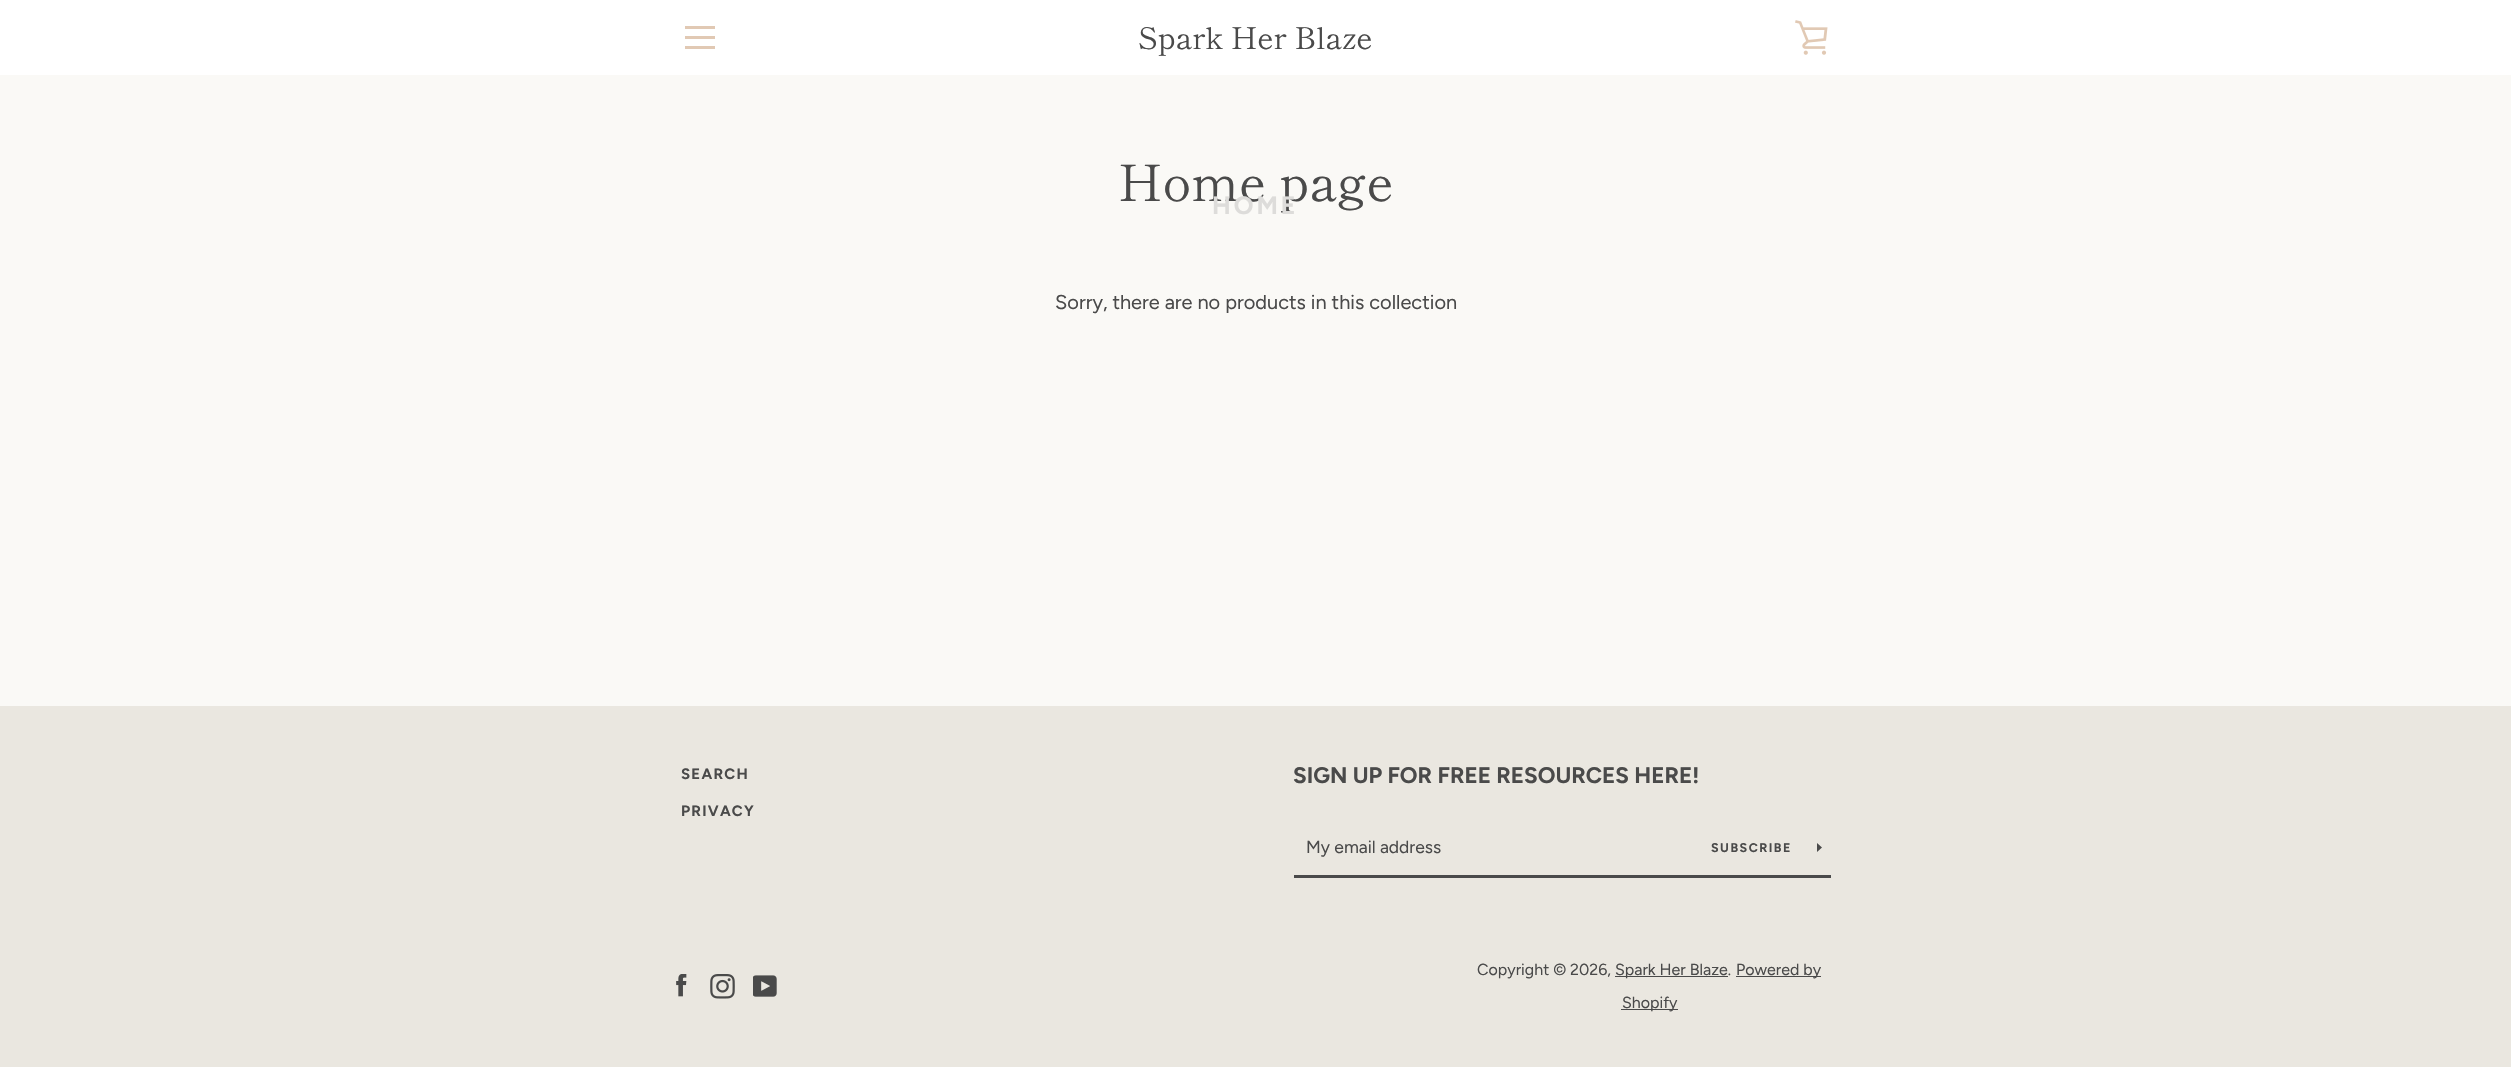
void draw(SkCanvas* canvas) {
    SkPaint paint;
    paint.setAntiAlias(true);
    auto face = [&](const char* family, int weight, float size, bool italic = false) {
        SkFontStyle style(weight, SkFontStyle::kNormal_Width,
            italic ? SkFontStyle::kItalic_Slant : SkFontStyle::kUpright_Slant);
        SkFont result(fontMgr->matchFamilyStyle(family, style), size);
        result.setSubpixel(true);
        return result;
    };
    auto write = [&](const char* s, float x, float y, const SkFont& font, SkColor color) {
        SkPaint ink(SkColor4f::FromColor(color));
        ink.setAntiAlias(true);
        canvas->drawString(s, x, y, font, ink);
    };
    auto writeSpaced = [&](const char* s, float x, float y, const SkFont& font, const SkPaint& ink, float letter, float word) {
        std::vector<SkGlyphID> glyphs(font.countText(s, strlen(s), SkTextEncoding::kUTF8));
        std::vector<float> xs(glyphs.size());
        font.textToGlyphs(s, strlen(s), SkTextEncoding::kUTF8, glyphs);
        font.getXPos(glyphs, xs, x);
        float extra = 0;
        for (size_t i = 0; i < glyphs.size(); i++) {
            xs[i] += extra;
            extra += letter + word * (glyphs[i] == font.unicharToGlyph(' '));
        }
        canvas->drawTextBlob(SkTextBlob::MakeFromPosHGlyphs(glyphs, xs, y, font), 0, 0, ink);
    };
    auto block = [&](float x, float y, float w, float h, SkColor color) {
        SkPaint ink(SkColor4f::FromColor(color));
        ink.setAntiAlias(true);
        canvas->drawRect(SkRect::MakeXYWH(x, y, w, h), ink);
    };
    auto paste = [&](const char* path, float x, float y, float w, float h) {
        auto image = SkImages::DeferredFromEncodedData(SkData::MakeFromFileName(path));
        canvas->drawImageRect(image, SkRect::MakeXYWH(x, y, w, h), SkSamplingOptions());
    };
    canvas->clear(SkColorSetRGB(250, 249, 246));
    block(0, 0, 2511, 75, SK_ColorWHITE);
    auto kFont1 = face("Shippori Mincho", 400, 30);
    write("Spark Her Blaze", 1138, 49, kFont1, SkColorSetRGB(74, 74, 74));
    paste("pic1.png", 1795, 20, 33, 35);
    block(685, 26, 30, 3, SkColorSetRGB(225, 201, 180));
    block(685, 36, 30, 3, SkColorSetRGB(225, 201, 180));
    block(685, 46, 30, 3, SkColorSetRGB(225, 201, 180));
    auto kFont2 = face("Shippori Mincho", 400, 50);
    write("Home page", 1118, 201, kFont2, SkColorSetRGB(74, 74, 74));
    auto kFont3 = face("Figtree", 700, 25);
    paint.setColor(SkColorSetRGB(221, 220, 218));
    writeSpaced("HOME", 1212, 214, kFont3, paint, 3, 0);
    auto kFont4 = face("Figtree", 400, 20);
    write("Sorry, there are no products in this collection", 1055, 309, kFont4, SkColorSetRGB(74, 74, 74));
    block(0, 706, 2511, 361, SkColorSetRGB(234, 231, 224));
    auto kFont5 = face("Figtree", 700, 15);
    paint.setColor(SkColorSetRGB(74, 74, 74));
    writeSpaced("SEARCH", 681, 779, kFont5, paint, 1.25f, 0);
    writeSpaced("PRIVACY", 681, 816, kFont5, paint, 1.25f, 0);
    auto kFont6 = face("Figtree", 700, 22.5f);
    write("SIGN UP FOR FREE RESOURCES HERE!", 1293, 783, kFont6, SkColorSetRGB(74, 74, 74));
    block(1294, 875, 537, 3, SkColorSetRGB(74, 74, 74));
    auto kFont7 = face("Figtree", 400, 17.5f);
    write("My email address", 1306, 853, kFont7, SkColorSetRGB(74, 74, 74));
    auto kFont8 = face("Figtree", 700, 12.5f);
    writeSpaced("SUBSCRIBE", 1711, 852, kFont8, paint, 1.5f, 0);
    canvas->drawPath(SkPathBuilder().moveTo(1822, 847.5f).lineTo(1817, 852).lineTo(1817, 843).close().detach(), paint);
    paste("pic2.png", 676, 974, 11, 23);
    paste("pic3.png", 710, 974, 25, 25);
    paste("pic4.png", 753, 975, 24, 22);
    auto kFont9 = face("Figtree", 400, 16);
    write("Copyright © 2026,", 1477, 975, kFont9, SkColorSetRGB(74, 74, 74));
    block(1615, 976, 113, 1, SkColorSetRGB(74, 74, 74));
    write("Spark Her Blaze.", 1615, 975, kFont9, SkColorSetRGB(74, 74, 74));
    block(1736, 976, 85, 1, SkColorSetRGB(74, 74, 74));
    write("Powered by", 1736, 975, kFont9, SkColorSetRGB(74, 74, 74));
    block(1621, 1009, 57, 1, SkColorSetRGB(74, 74, 74));
    write("Shopify", 1622, 1008, kFont9, SkColorSetRGB(74, 74, 74));
}
